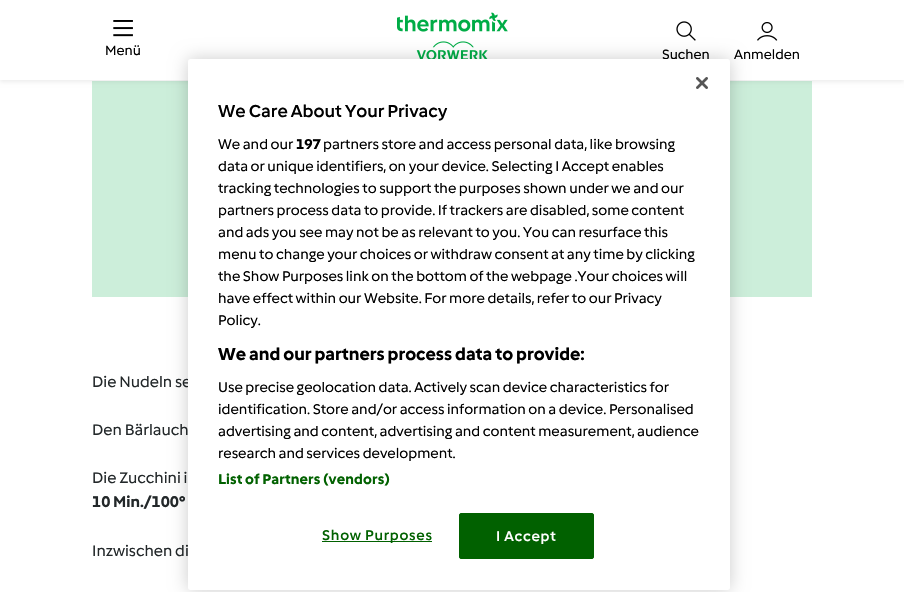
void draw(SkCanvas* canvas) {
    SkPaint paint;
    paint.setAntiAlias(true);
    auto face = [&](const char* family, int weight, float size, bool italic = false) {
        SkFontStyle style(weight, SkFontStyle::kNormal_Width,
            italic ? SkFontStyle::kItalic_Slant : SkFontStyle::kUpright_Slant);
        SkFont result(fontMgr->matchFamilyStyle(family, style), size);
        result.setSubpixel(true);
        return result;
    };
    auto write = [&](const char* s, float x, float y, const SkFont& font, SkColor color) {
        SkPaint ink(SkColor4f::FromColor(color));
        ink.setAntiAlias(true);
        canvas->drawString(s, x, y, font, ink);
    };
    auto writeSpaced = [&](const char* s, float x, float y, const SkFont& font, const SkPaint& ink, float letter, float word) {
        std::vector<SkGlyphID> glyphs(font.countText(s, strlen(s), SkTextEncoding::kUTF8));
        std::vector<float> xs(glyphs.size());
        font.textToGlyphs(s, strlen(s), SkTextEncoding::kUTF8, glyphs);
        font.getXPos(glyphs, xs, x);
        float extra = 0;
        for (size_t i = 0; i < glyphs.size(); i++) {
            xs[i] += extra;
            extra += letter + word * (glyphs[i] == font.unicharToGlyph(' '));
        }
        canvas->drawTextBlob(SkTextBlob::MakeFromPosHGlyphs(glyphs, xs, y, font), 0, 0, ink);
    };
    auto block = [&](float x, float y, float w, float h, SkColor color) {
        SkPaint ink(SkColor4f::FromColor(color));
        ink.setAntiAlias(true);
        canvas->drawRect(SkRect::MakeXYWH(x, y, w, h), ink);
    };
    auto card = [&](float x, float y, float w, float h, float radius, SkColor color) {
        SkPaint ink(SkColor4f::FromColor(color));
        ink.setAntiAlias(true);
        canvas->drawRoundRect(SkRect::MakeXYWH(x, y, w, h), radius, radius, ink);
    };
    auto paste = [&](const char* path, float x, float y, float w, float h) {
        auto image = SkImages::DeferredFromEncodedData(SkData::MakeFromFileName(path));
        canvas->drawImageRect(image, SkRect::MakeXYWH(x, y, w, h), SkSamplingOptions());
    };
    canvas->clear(SK_ColorWHITE);
    block(92, 81, 720, 216, SkColorSetRGB(204, 238, 218));
    paint.setColor(SkColorSetARGB(18, 0, 0, 0));
    paint.setMaskFilter(SkMaskFilter::MakeBlur(kNormal_SkBlurStyle, 2));
    canvas->drawRect(SkRect::MakeXYWH(0, 2, 904, 80), paint);
    paint.setMaskFilter(nullptr);
    block(0, 0, 904, 80, SK_ColorWHITE);
    paste("pic1.png", 113, 20, 20, 17);
    auto kFont1 = face("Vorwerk", 400, 14);
    write("Menü", 105, 55, kFont1, SK_ColorBLACK);
    paste("pic2.png", 397, 12, 111, 47);
    paste("pic3.png", 676, 21, 20, 20);
    write("Suchen", 662, 59, kFont1, SK_ColorBLACK);
    paste("pic4.png", 757, 22, 21, 19);
    write("Anmelden", 734, 59, kFont1, SK_ColorBLACK);
    auto kFont2 = face("Vorwerk", 400, 16);
    write("Die Nudeln se", 92, 387, kFont2, SkColorSetRGB(35, 40, 42));
    write("Den Bärlauch", 92, 435, kFont2, SkColorSetRGB(35, 40, 42));
    write("Die Zucchini i", 92, 483, kFont2, SkColorSetRGB(35, 40, 42));
    auto kFont3 = face("Vorwerk", 700, 16);
    write("10 Min./100°", 92, 507, kFont3, SkColorSetRGB(35, 40, 42));
    write("Inzwischen di", 92, 556, kFont2, SkColorSetRGB(35, 40, 42));
    paint.setColor(SkColorSetARGB(51, 0, 0, 0));
    paint.setMaskFilter(SkMaskFilter::MakeBlur(kNormal_SkBlurStyle, 9));
    canvas->drawRoundRect(SkRect::MakeXYWH(188, 59, 542, 531), 2.5f, 2.5f, paint);
    paint.setMaskFilter(nullptr);
    card(188, 59, 542, 531, 2.5f, SK_ColorWHITE);
    paste("pic5.png", 696, 77, 12, 12);
    auto kFont4 = face("Vorwerk", 500, 18);
    write("We Care About Your Privacy", 218, 117, kFont4, SK_ColorBLACK);
    auto kFont5 = face("Vorwerk", 400, 14.6f);
    write("We and our", 218, 149, kFont5, SK_ColorBLACK);
    auto kFont6 = face("Vorwerk", 700, 14.6f);
    write("197", 296, 149, kFont6, SK_ColorBLACK);
    write("partners store and access personal data, like browsing", 323, 149, kFont5, SK_ColorBLACK);
    write("data or unique identifiers, on your device. Selecting I Accept enables", 218, 171, kFont5, SK_ColorBLACK);
    write("tracking technologies to support the purposes shown under we and our", 218, 193, kFont5, SK_ColorBLACK);
    write("partners process data to provide. If trackers are disabled, some content", 218, 215, kFont5, SK_ColorBLACK);
    write("and ads you see may not be as relevant to you. You can resurface this", 218, 237, kFont5, SK_ColorBLACK);
    write("menu to change your choices or withdraw consent at any time by clicking", 218, 259, kFont5, SK_ColorBLACK);
    write("the Show Purposes link on the bottom of the webpage .Your choices will", 218, 281, kFont5, SK_ColorBLACK);
    write("have effect within our Website. For more details, refer to our Privacy", 218, 303, kFont5, SK_ColorBLACK);
    write("Policy.", 218, 325, kFont5, SK_ColorBLACK);
    auto kFont7 = face("Vorwerk", 700, 18);
    write("We and our partners process data to provide:", 218, 360, kFont7, SK_ColorBLACK);
    write("Use precise geolocation data. Actively scan device characteristics for", 218, 392, kFont5, SK_ColorBLACK);
    write("identification. Store and/or access information on a device. Personalised", 218, 414, kFont5, SK_ColorBLACK);
    write("advertising and content, advertising and content measurement, audience", 218, 436, kFont5, SK_ColorBLACK);
    write("research and services development.", 218, 458, kFont5, SK_ColorBLACK);
    paint.setColor(SkColorSetRGB(1, 97, 0));
    writeSpaced("List of Partners (vendors)", 218, 484, kFont6, paint, 0.15f, 0);
    block(322, 541, 110, 1, SkColorSetRGB(1, 97, 0));
    auto kFont8 = face("Vorwerk", 500, 14.6f);
    writeSpaced("Show Purposes", 322, 540, kFont8, paint, 0.75f, 0);
    canvas->drawRoundRect(SkRect::MakeXYWH(459.5f, 513.5f, 134, 45), 1.5f, 1.5f, paint);
    paint.setStyle(SkPaint::kStroke_Style);
    paint.setStrokeWidth(1);
    canvas->drawRoundRect(SkRect::MakeXYWH(459.5f, 513.5f, 134, 45), 1.5f, 1.5f, paint);
    paint.setStyle(SkPaint::kFill_Style);
    paint.setColor(SK_ColorWHITE);
    writeSpaced("I Accept", 496, 541, kFont8, paint, 0.75f, 0);
}
